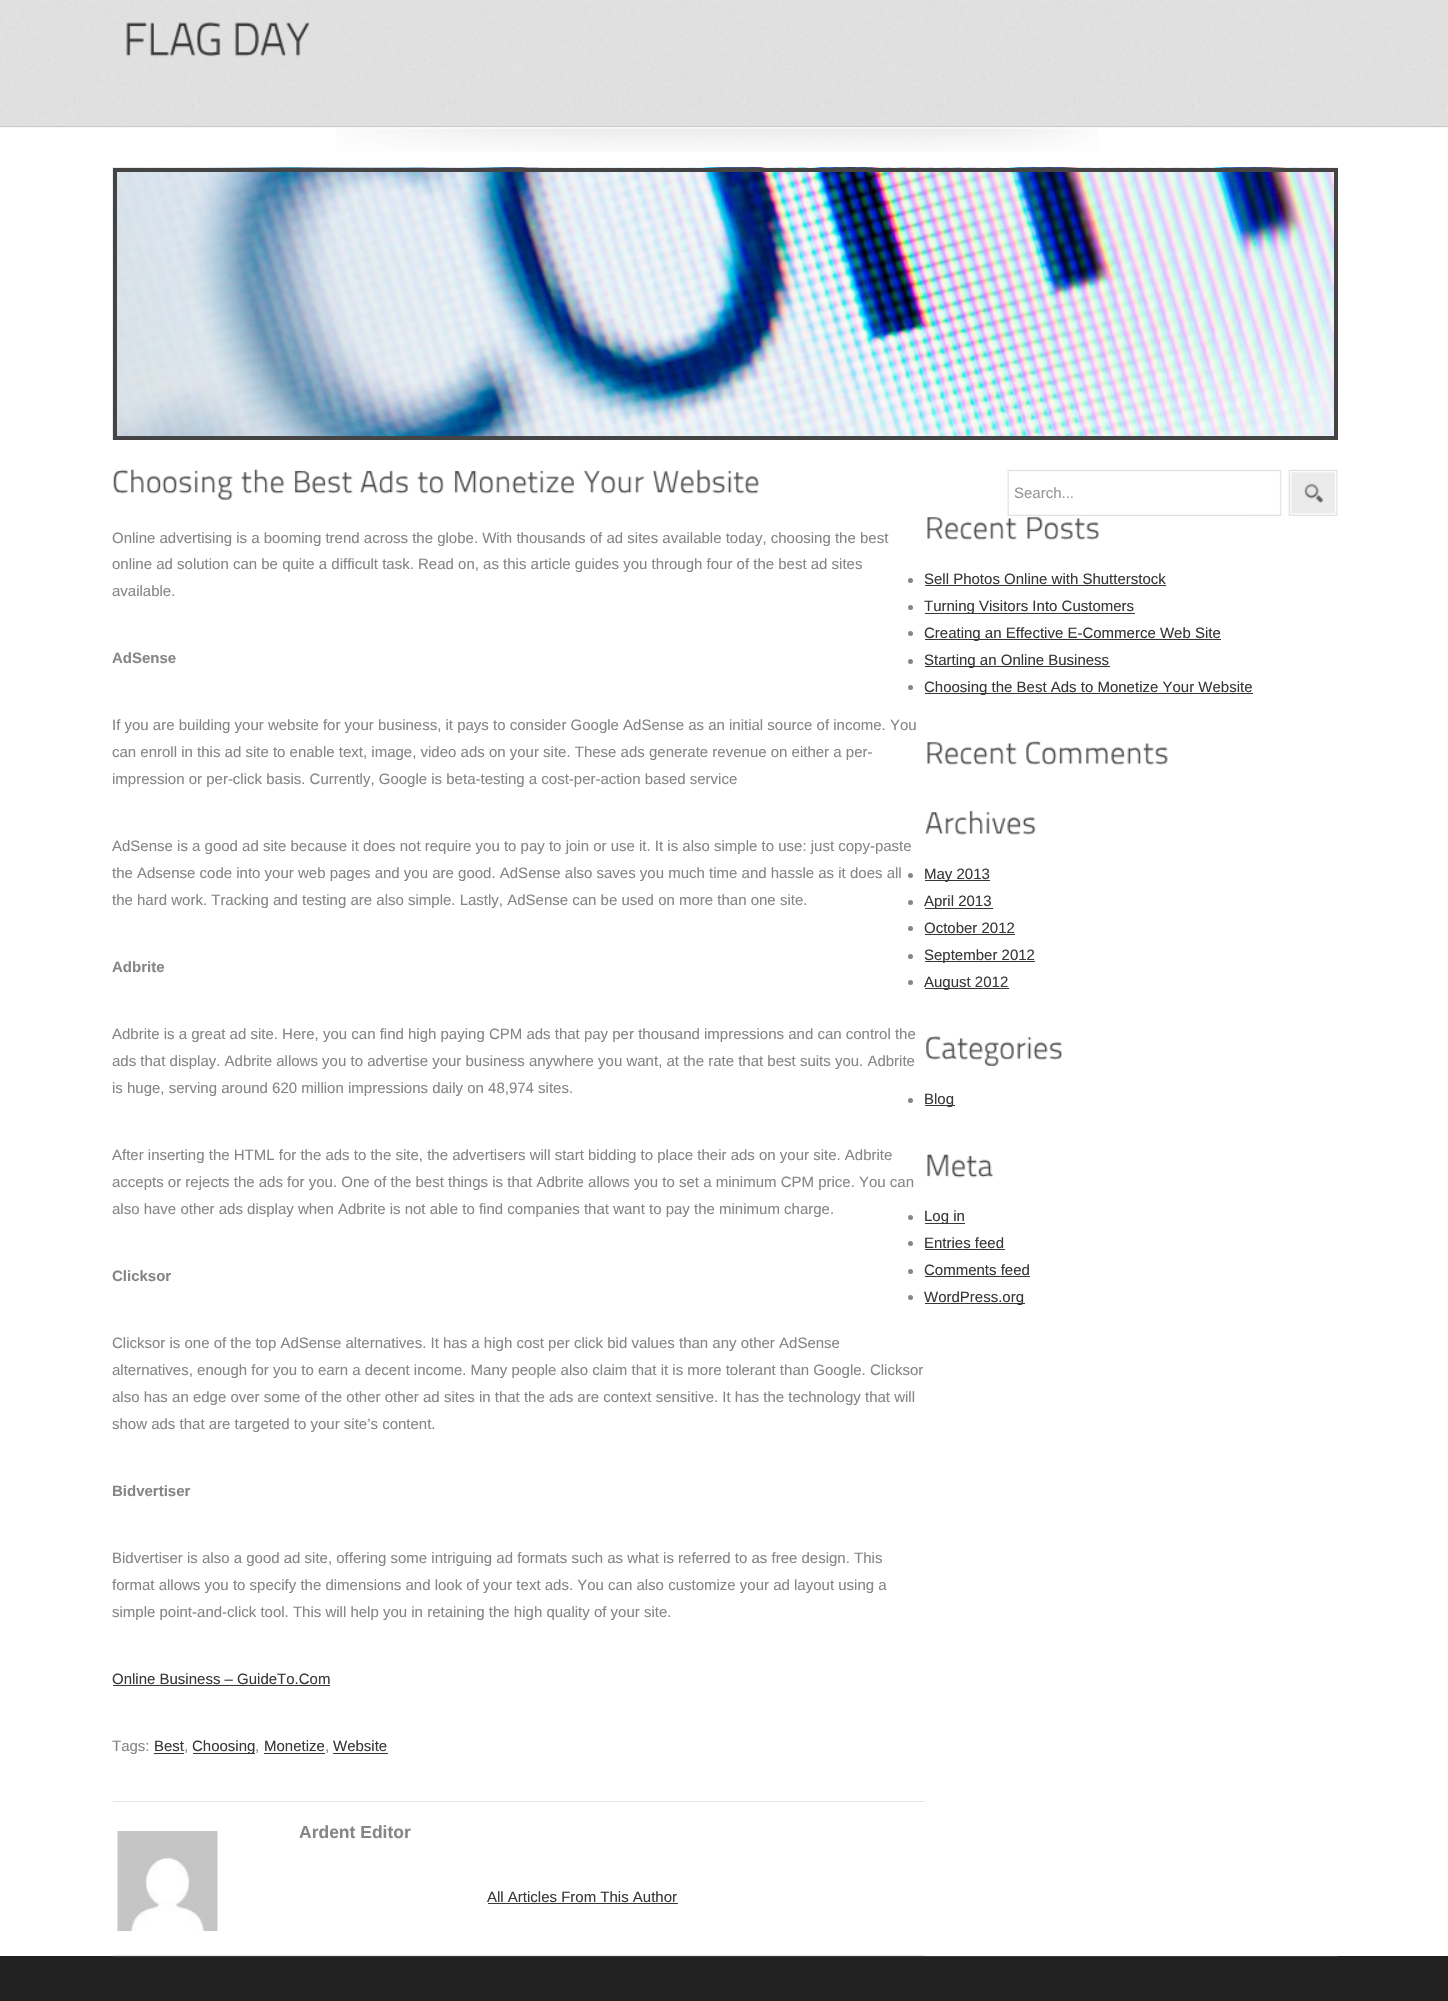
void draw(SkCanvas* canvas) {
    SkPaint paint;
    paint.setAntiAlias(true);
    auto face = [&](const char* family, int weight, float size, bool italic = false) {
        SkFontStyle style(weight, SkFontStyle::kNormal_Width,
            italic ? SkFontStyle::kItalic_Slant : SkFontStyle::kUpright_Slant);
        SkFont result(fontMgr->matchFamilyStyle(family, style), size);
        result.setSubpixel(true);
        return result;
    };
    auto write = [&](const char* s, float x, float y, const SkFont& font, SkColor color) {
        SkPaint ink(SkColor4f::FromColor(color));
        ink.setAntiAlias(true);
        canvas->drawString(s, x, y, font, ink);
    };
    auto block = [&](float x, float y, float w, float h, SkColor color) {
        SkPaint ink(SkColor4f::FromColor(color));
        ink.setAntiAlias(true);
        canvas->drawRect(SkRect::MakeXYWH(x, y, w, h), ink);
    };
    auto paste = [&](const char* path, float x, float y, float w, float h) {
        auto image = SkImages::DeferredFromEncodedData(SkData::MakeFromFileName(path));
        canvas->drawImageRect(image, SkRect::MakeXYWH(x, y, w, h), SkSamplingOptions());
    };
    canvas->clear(SK_ColorWHITE);
    paste("pic1.png", 0, 0, 1448, 128);
    block(0, 126, 1448, 1, SkColorSetRGB(202, 202, 202));
    paste("pic2.png", 126, 22, 95, 35);
    paste("pic3.png", 234, 22, 76, 35);
    paste("pic4.png", 336, 128, 763, 24);
    paste("pic5.png", 112, 167, 1226, 273);
    paint.setStyle(SkPaint::kStroke_Style);
    paint.setStrokeWidth(4);
    paint.setColor(SkColorSetRGB(68, 68, 68));
    canvas->drawRect(SkRect::MakeXYWH(115, 170, 1221, 268), paint);
    paste("pic6.png", 1007, 469, 275, 47);
    auto kFont1 = face("Liberation Sans", 400, 15);
    write("Search...", 1014, 498, kFont1, SkColorSetRGB(150, 150, 150));
    paste("pic7.png", 1288, 469, 50, 47);
    paste("pic8.png", 113, 469, 120, 31);
    paste("pic9.png", 241, 469, 43, 25);
    paste("pic10.png", 294, 470, 59, 24);
    paste("pic11.png", 360, 470, 49, 24);
    paste("pic12.png", 417, 472, 27, 22);
    paste("pic13.png", 454, 470, 120, 24);
    paste("pic14.png", 583, 470, 61, 24);
    paste("pic15.png", 652, 469, 107, 25);
    write("Online advertising is a booming trend across the globe. With thousands of ad sites available today, choosing the best", 112, 543, kFont1, SkColorSetRGB(134, 134, 134));
    write("online ad solution can be quite a difficult task. Read on, as this article guides you through four of the best ad sites", 112, 569, kFont1, SkColorSetRGB(134, 134, 134));
    write("available.", 112, 596, kFont1, SkColorSetRGB(134, 134, 134));
    auto kFont2 = face("Liberation Sans", 700, 15);
    write("AdSense", 112, 663, kFont2, SkColorSetRGB(134, 134, 134));
    write("If you are building your website for your business, it pays to consider Google AdSense as an initial source of income. You", 112, 730, kFont1, SkColorSetRGB(134, 134, 134));
    write("can enroll in this ad site to enable text, image, video ads on your site. These ads generate revenue on either a per-", 112, 757, kFont1, SkColorSetRGB(134, 134, 134));
    write("impression or per-click basis. Currently, Google is beta-testing a cost-per-action based service", 112, 784, kFont1, SkColorSetRGB(134, 134, 134));
    write("AdSense is a good ad site because it does not require you to pay to join or use it. It is also simple to use: just copy-paste", 112, 851, kFont1, SkColorSetRGB(134, 134, 134));
    write("the Adsense code into your web pages and you are good. AdSense also saves you much time and hassle as it does all", 112, 878, kFont1, SkColorSetRGB(134, 134, 134));
    write("the hard work. Tracking and testing are also simple. Lastly, AdSense can be used on more than one site.", 112, 905, kFont1, SkColorSetRGB(134, 134, 134));
    write("Adbrite", 112, 972, kFont2, SkColorSetRGB(134, 134, 134));
    write("Adbrite is a great ad site. Here, you can find high paying CPM ads that pay per thousand impressions and can control the", 112, 1039, kFont1, SkColorSetRGB(134, 134, 134));
    write("ads that display. Adbrite allows you to advertise your business anywhere you want, at the rate that best suits you. Adbrite", 112, 1066, kFont1, SkColorSetRGB(134, 134, 134));
    write("is huge, serving around 620 million impressions daily on 48,974 sites.", 112, 1093, kFont1, SkColorSetRGB(134, 134, 134));
    write("After inserting the HTML for the ads to the site, the advertisers will start bidding to place their ads on your site. Adbrite", 112, 1160, kFont1, SkColorSetRGB(134, 134, 134));
    write("accepts or rejects the ads for you. One of the best things is that Adbrite allows you to set a minimum CPM price. You can", 112, 1187, kFont1, SkColorSetRGB(134, 134, 134));
    write("also have other ads display when Adbrite is not able to find companies that want to pay the minimum charge.", 112, 1214, kFont1, SkColorSetRGB(134, 134, 134));
    write("Clicksor", 112, 1281, kFont2, SkColorSetRGB(134, 134, 134));
    write("Clicksor is one of the top AdSense alternatives. It has a high cost per click bid values than any other AdSense", 112, 1348, kFont1, SkColorSetRGB(134, 134, 134));
    write("alternatives, enough for you to earn a decent income. Many people also claim that it is more tolerant than Google. Clicksor", 112, 1375, kFont1, SkColorSetRGB(134, 134, 134));
    write("also has an edge over some of the other other ad sites in that the ads are context sensitive. It has the technology that will", 112, 1402, kFont1, SkColorSetRGB(134, 134, 134));
    write("show ads that are targeted to your site’s content.", 112, 1429, kFont1, SkColorSetRGB(134, 134, 134));
    write("Bidvertiser", 112, 1496, kFont2, SkColorSetRGB(134, 134, 134));
    write("Bidvertiser is also a good ad site, offering some intriguing ad formats such as what is referred to as free design. This", 112, 1563, kFont1, SkColorSetRGB(134, 134, 134));
    write("format allows you to specify the dimensions and look of your text ads. You can also customize your ad layout using a", 112, 1590, kFont1, SkColorSetRGB(134, 134, 134));
    write("simple point-and-click tool. This will help you in retaining the high quality of your site.", 112, 1617, kFont1, SkColorSetRGB(134, 134, 134));
    write("Online Business – GuideTo.Com", 112, 1684, kFont1, SkColorSetRGB(56, 56, 56));
    block(113, 1685, 217, 1, SkColorSetRGB(56, 56, 56));
    write("Tags:", 112, 1751, kFont1, SkColorSetRGB(134, 134, 134));
    write("Best", 154, 1751, kFont1, SkColorSetRGB(56, 56, 56));
    block(154, 1753, 30, 1, SkColorSetRGB(56, 56, 56));
    write(",", 184, 1751, kFont1, SkColorSetRGB(134, 134, 134));
    block(193, 1753, 62, 1, SkColorSetRGB(56, 56, 56));
    write("Choosing", 192, 1751, kFont1, SkColorSetRGB(56, 56, 56));
    write(",", 255, 1751, kFont1, SkColorSetRGB(134, 134, 134));
    write("Monetize", 264, 1751, kFont1, SkColorSetRGB(56, 56, 56));
    block(264, 1753, 61, 1, SkColorSetRGB(56, 56, 56));
    write(",", 325, 1751, kFont1, SkColorSetRGB(134, 134, 134));
    write("Website", 333, 1751, kFont1, SkColorSetRGB(56, 56, 56));
    block(333, 1753, 55, 1, SkColorSetRGB(56, 56, 56));
    block(113, 1801, 812, 1, SkColorSetRGB(231, 231, 231));
    block(113, 1955, 812, 1, SkColorSetRGB(231, 231, 231));
    paste("pic16.png", 117, 1831, 101, 100);
    auto kFont3 = face("Liberation Sans", 700, 17.5f);
    write("Ardent Editor", 299, 1838, kFont3, SkColorSetRGB(134, 134, 134));
    write("All Articles From This Author", 487, 1902, kFont1, SkColorSetRGB(56, 56, 56));
    block(488, 1903, 190, 1, SkColorSetRGB(56, 56, 56));
    paste("pic17.png", 927, 517, 90, 23);
    paste("pic18.png", 1027, 517, 72, 23);
    paint.setStyle(SkPaint::kFill_Style);
    paint.setColor(SkColorSetRGB(134, 134, 134));
    canvas->drawCircle(910.5f, 580.5f, 2.5f, paint);
    write("Sell Photos Online with Shutterstock", 924, 584, kFont1, SkColorSetRGB(56, 56, 56));
    block(925, 585, 241, 1, SkColorSetRGB(56, 56, 56));
    canvas->drawCircle(910.5f, 607.5f, 2.5f, paint);
    block(925, 613, 210, 1, SkColorSetRGB(56, 56, 56));
    write("Turning Visitors Into Customers", 924, 611, kFont1, SkColorSetRGB(56, 56, 56));
    canvas->drawCircle(910.5f, 633.5f, 2.5f, paint);
    block(925, 639, 296, 1, SkColorSetRGB(56, 56, 56));
    write("Creating an Effective E-Commerce Web Site", 924, 638, kFont1, SkColorSetRGB(56, 56, 56));
    canvas->drawCircle(910.5f, 661.5f, 2.5f, paint);
    block(925, 666, 185, 1, SkColorSetRGB(56, 56, 56));
    write("Starting an Online Business", 924, 665, kFont1, SkColorSetRGB(56, 56, 56));
    canvas->drawCircle(910.5f, 687.5f, 2.5f, paint);
    block(925, 693, 328, 1, SkColorSetRGB(56, 56, 56));
    write("Choosing the Best Ads to Monetize Your Website", 924, 692, kFont1, SkColorSetRGB(56, 56, 56));
    paste("pic17.png", 927, 742, 90, 23);
    paste("pic19.png", 1026, 741, 142, 24);
    paste("pic20.png", 925, 810, 111, 25);
    canvas->drawCircle(910.5f, 875.5f, 2.5f, paint);
    block(925, 880, 65, 1, SkColorSetRGB(56, 56, 56));
    write("May 2013", 924, 879, kFont1, SkColorSetRGB(56, 56, 56));
    canvas->drawCircle(910.5f, 902.5f, 2.5f, paint);
    block(925, 908, 68, 1, SkColorSetRGB(56, 56, 56));
    write("April 2013", 924, 906, kFont1, SkColorSetRGB(56, 56, 56));
    canvas->drawCircle(910.5f, 928.5f, 2.5f, paint);
    write("October 2012", 924, 933, kFont1, SkColorSetRGB(56, 56, 56));
    block(925, 934, 90, 1, SkColorSetRGB(56, 56, 56));
    canvas->drawCircle(910.5f, 956.5f, 2.5f, paint);
    block(925, 961, 110, 1, SkColorSetRGB(56, 56, 56));
    write("September 2012", 924, 960, kFont1, SkColorSetRGB(56, 56, 56));
    canvas->drawCircle(910.5f, 982.5f, 2.5f, paint);
    block(925, 988, 84, 1, SkColorSetRGB(56, 56, 56));
    write("August 2012", 924, 987, kFont1, SkColorSetRGB(56, 56, 56));
    paste("pic21.png", 926, 1036, 137, 30);
    canvas->drawCircle(910.5f, 1100.5f, 2.5f, paint);
    block(925, 1105, 30, 1, SkColorSetRGB(56, 56, 56));
    write("Blog", 924, 1104, kFont1, SkColorSetRGB(56, 56, 56));
    paste("pic22.png", 927, 1154, 66, 24);
    canvas->drawCircle(910.5f, 1217.5f, 2.5f, paint);
    block(925, 1223, 40, 1, SkColorSetRGB(56, 56, 56));
    write("Log in", 924, 1221, kFont1, SkColorSetRGB(56, 56, 56));
    canvas->drawCircle(910.5f, 1243.5f, 2.5f, paint);
    write("Entries feed", 924, 1248, kFont1, SkColorSetRGB(56, 56, 56));
    block(925, 1249, 80, 1, SkColorSetRGB(56, 56, 56));
    canvas->drawCircle(910.5f, 1271.5f, 2.5f, paint);
    write("Comments feed", 924, 1275, kFont1, SkColorSetRGB(56, 56, 56));
    block(925, 1276, 105, 1, SkColorSetRGB(56, 56, 56));
    canvas->drawCircle(910.5f, 1297.5f, 2.5f, paint);
    block(925, 1303, 100, 1, SkColorSetRGB(56, 56, 56));
    write("WordPress.org", 924, 1302, kFont1, SkColorSetRGB(56, 56, 56));
    block(0, 1956, 1448, 45, SkColorSetRGB(33, 33, 33));
    block(113, 1956, 1225, 1, SkColorSetRGB(60, 60, 60));
}
